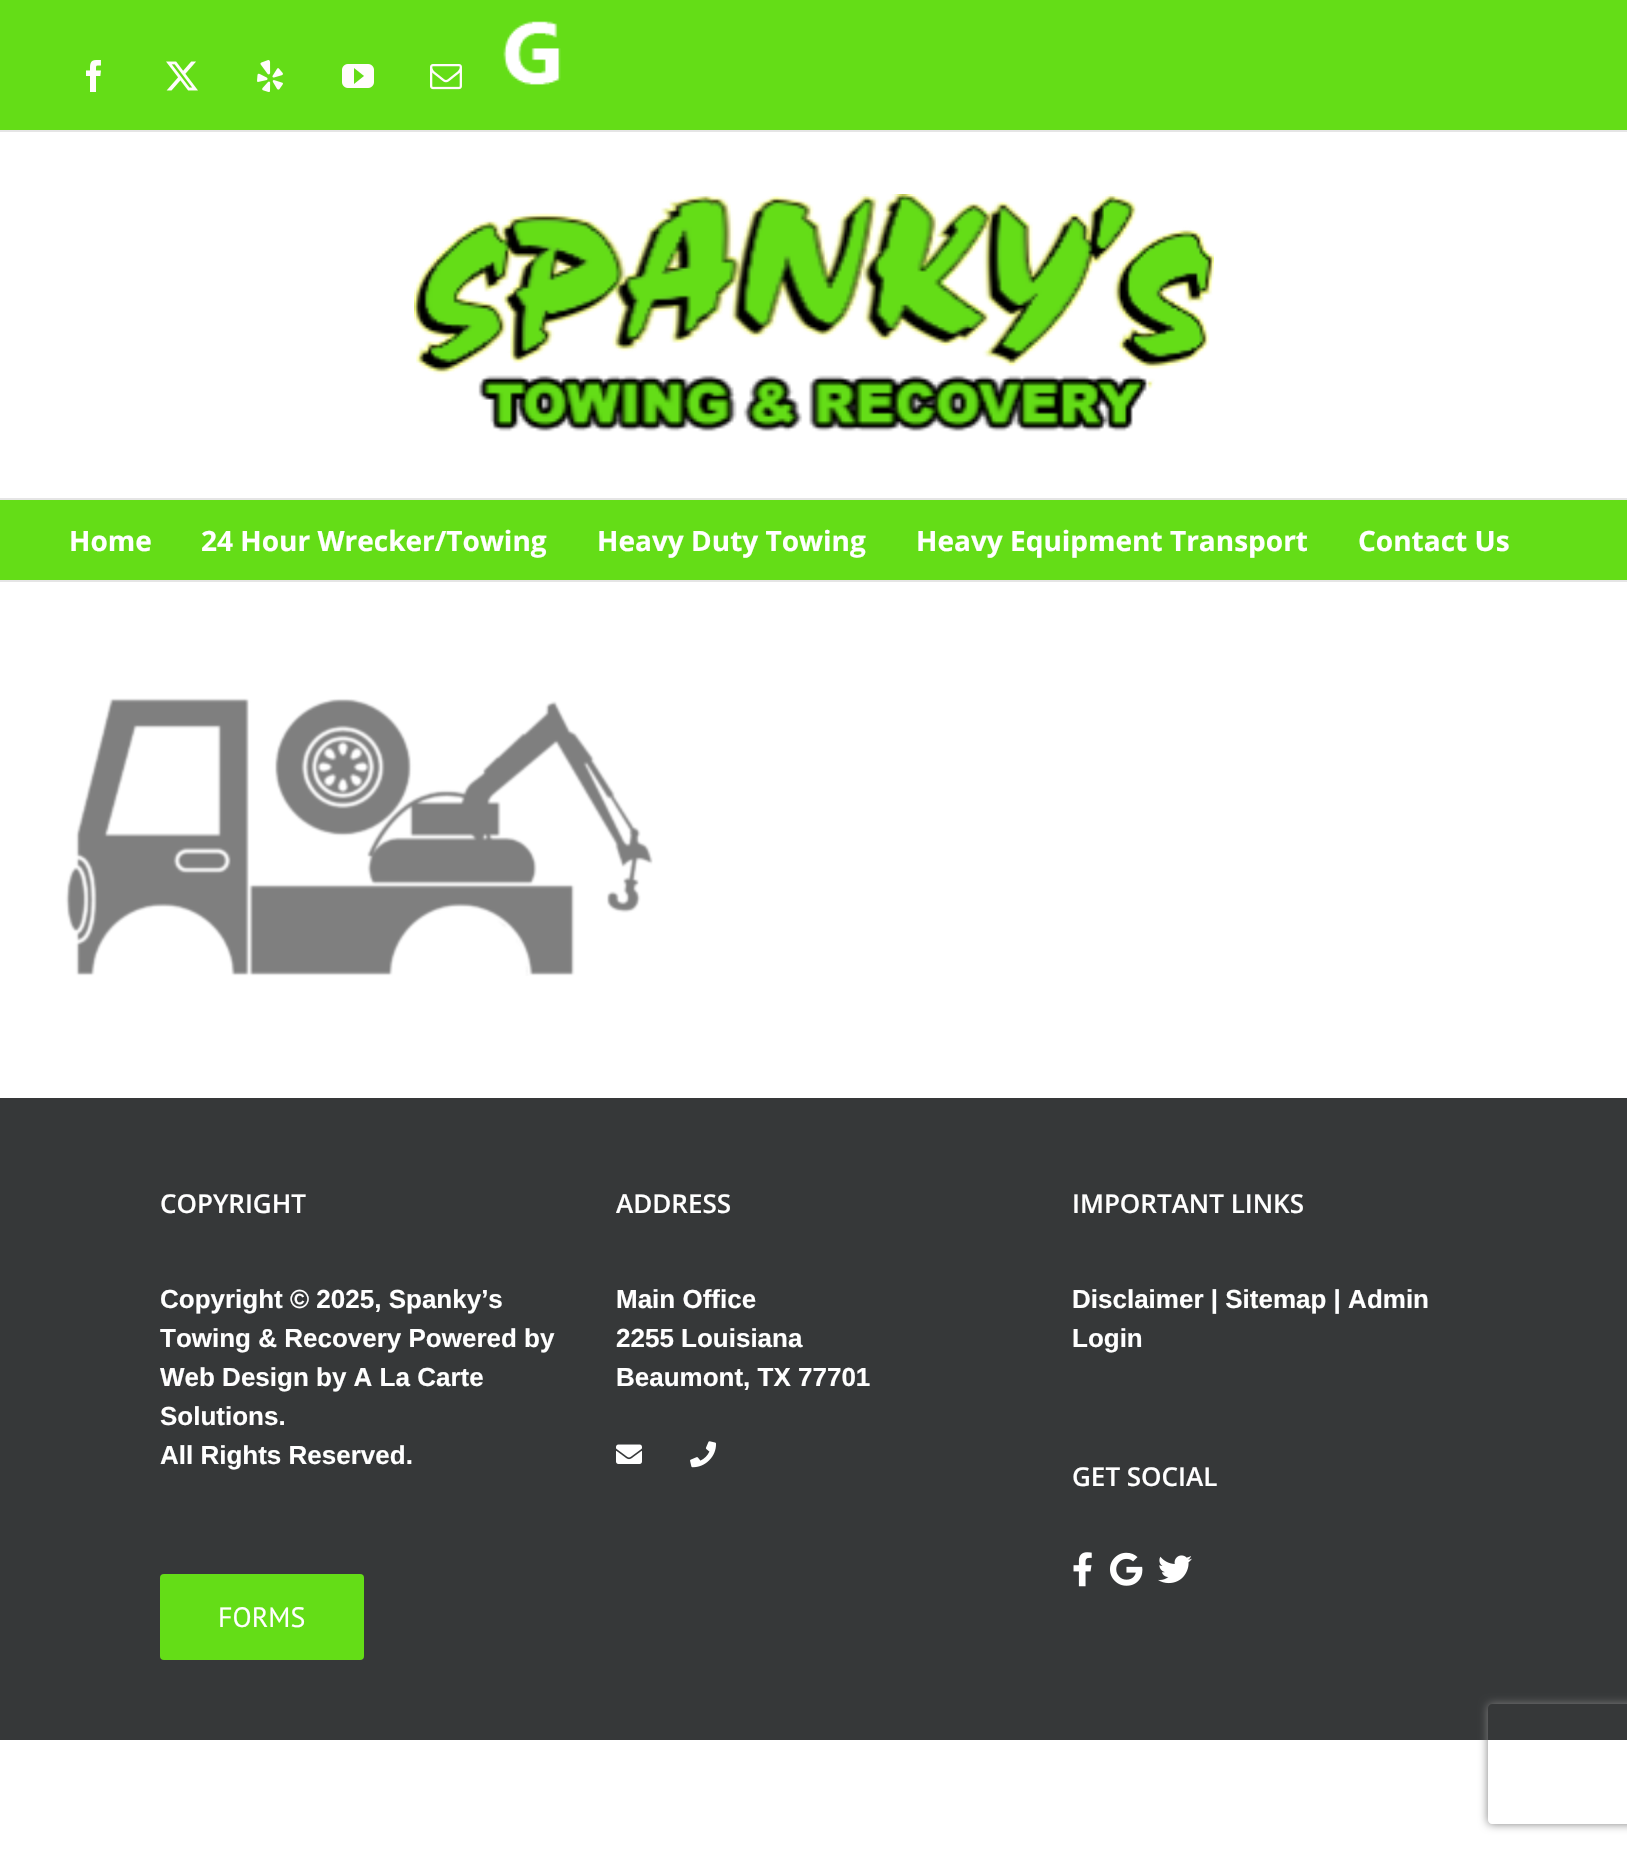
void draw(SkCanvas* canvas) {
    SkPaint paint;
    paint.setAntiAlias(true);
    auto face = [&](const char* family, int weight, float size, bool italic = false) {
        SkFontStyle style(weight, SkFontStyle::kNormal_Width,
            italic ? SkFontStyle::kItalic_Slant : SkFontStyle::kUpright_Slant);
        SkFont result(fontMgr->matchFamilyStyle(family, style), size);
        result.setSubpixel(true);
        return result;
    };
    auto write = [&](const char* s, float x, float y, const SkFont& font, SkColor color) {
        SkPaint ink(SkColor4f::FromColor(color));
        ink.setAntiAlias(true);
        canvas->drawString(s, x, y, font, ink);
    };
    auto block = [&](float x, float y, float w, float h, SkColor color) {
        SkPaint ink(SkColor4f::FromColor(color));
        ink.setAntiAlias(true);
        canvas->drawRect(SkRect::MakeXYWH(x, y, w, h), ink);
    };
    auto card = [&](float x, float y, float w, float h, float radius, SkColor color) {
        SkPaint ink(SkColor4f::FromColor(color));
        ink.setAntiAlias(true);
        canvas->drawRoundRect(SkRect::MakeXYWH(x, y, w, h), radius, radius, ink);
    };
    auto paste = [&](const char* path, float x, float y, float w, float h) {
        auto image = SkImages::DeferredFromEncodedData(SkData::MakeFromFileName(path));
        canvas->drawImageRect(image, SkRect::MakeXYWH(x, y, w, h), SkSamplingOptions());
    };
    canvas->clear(SK_ColorWHITE);
    block(0, 0, 1627, 130, SkColorSetRGB(100, 221, 23));
    block(0, 130, 1627, 2, SkColorSetRGB(229, 229, 229));
    paste("pic1.png", 86, 60, 15, 32);
    paste("pic2.png", 166, 61, 32, 30);
    paste("pic3.png", 257, 60, 26, 32);
    paste("pic4.png", 342, 64, 32, 24);
    paste("pic5.png", 430, 64, 32, 26);
    paste("pic6.png", 503, 21, 58, 64);
    block(0, 498, 1627, 2, SkColorSetRGB(229, 229, 229));
    paste("pic7.png", 414, 194, 800, 238);
    block(0, 500, 1627, 80, SkColorSetRGB(100, 221, 23));
    block(0, 580, 1627, 2, SkColorSetRGB(229, 229, 229));
    auto kFont1 = face("Open Sans", 700, 28);
    write("Home", 69, 551, kFont1, SK_ColorWHITE);
    write("24 Hour Wrecker/Towing", 201, 551, kFont1, SK_ColorWHITE);
    write("Heavy Duty Towing", 597, 551, kFont1, SK_ColorWHITE);
    write("Heavy Equipment Transport", 916, 551, kFont1, SK_ColorWHITE);
    write("Contact Us", 1358, 551, kFont1, SK_ColorWHITE);
    paste("pic8.png", 65, 698, 588, 278);
    block(0, 1098, 1627, 642, SkColorSetRGB(54, 56, 57));
    auto kFont2 = face("Open Sans", 600, 26);
    write("COPYRIGHT", 160, 1213, kFont2, SK_ColorWHITE);
    auto kFont3 = face("Liberation Sans", 700, 26);
    write("Copyright © 2025, Spanky’s", 160, 1308, kFont3, SK_ColorWHITE);
    write("Towing & Recovery Powered by", 160, 1347, kFont3, SK_ColorWHITE);
    write("Web Design by A La Carte", 160, 1386, kFont3, SK_ColorWHITE);
    write("Solutions.", 160, 1425, kFont3, SK_ColorWHITE);
    write("All Rights Reserved.", 160, 1464, kFont3, SK_ColorWHITE);
    card(160, 1574, 204, 86, 4, SkColorSetRGB(100, 221, 23));
    auto kFont4 = face("PT Sans", 400, 28);
    write("FORMS", 218, 1627, kFont4, SK_ColorWHITE);
    write("ADDRESS", 616, 1213, kFont2, SK_ColorWHITE);
    write("Main Office", 616, 1308, kFont3, SK_ColorWHITE);
    write("2255 Louisiana", 616, 1347, kFont3, SK_ColorWHITE);
    write("Beaumont, TX 77701", 616, 1386, kFont3, SK_ColorWHITE);
    paste("pic9.png", 616, 1444, 26, 20);
    paste("pic10.png", 690, 1441, 26, 27);
    write("IMPORTANT LINKS", 1072, 1213, kFont2, SK_ColorWHITE);
    write("Disclaimer | Sitemap | Admin", 1072, 1308, kFont3, SK_ColorWHITE);
    write("Login", 1072, 1347, kFont3, SK_ColorWHITE);
    write("GET SOCIAL", 1072, 1486, kFont2, SK_ColorWHITE);
    paste("pic11.png", 1073, 1552, 19, 35);
    paste("pic12.png", 1110, 1552, 33, 34);
    paste("pic13.png", 1158, 1555, 34, 29);
    canvas->save();
    canvas->clipPath(SkPathBuilder(SkPathFillType::kEvenOdd).moveTo(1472, 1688).lineTo(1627, 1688).lineTo(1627, 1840).lineTo(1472, 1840).close().moveTo(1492, 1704).lineTo(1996, 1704).cubicTo(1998, 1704, 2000, 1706, 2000, 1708).lineTo(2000, 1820).cubicTo(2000, 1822, 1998, 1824, 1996, 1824).lineTo(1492, 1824).cubicTo(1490, 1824, 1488, 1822, 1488, 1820).lineTo(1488, 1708).cubicTo(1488, 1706, 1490, 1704, 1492, 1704).close().detach(), true);
    paint.setColor(SkColorSetRGB(128, 128, 128));
    paint.setMaskFilter(SkMaskFilter::MakeBlur(kNormal_SkBlurStyle, 5));
    canvas->drawRoundRect(SkRect::MakeXYWH(1488, 1704, 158, 120), 4, 4, paint);
    paint.setMaskFilter(nullptr);
    canvas->restore();
}
